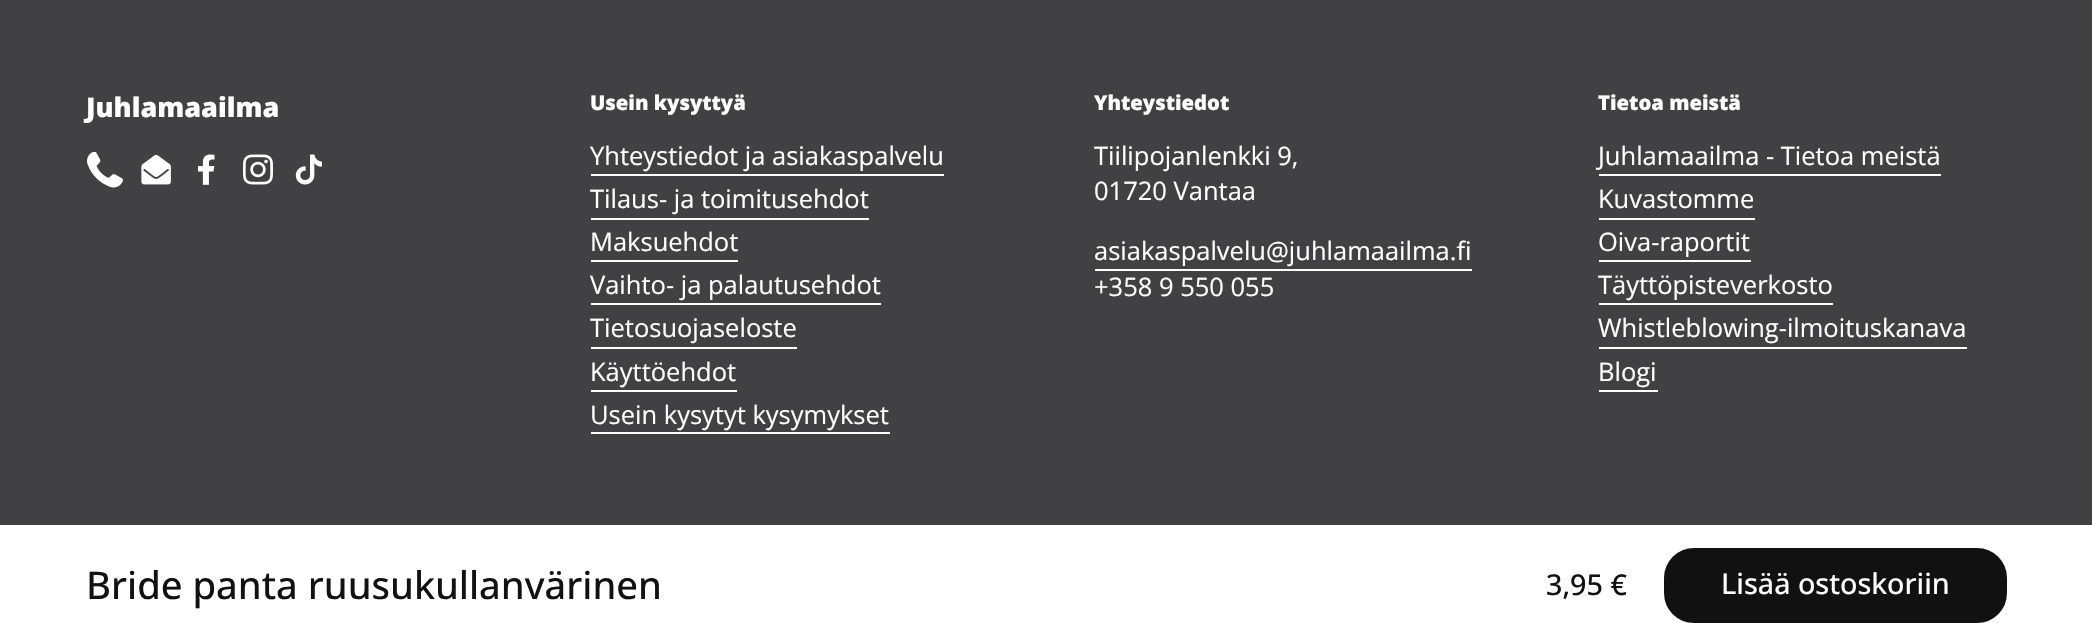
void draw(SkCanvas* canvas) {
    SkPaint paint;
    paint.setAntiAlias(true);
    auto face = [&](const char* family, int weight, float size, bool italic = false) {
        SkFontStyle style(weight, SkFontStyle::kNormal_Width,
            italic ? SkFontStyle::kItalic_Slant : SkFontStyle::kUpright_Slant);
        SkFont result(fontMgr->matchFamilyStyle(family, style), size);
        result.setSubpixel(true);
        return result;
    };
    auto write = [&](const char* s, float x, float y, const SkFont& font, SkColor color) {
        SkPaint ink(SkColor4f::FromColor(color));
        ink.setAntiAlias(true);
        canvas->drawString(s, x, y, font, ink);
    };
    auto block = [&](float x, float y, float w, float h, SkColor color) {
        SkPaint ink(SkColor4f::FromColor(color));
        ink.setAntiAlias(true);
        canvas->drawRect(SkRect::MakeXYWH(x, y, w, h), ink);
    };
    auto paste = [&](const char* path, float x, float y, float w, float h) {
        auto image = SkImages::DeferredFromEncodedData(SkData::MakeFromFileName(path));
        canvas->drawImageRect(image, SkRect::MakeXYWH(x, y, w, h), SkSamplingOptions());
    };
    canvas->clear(SkColorSetRGB(65, 64, 66));
    auto kFont1 = face("Open Sans", 800, 27);
    write("Juhlamaailma", 86, 117, kFont1, SK_ColorWHITE);
    paste("pic1.png", 87, 152, 36, 36);
    paste("pic2.png", 141, 154, 30, 31);
    paste("pic3.png", 198, 154, 17, 31);
    paste("pic4.png", 243, 154, 30, 31);
    paste("pic5.png", 295, 154, 27, 31);
    auto kFont2 = face("Open Sans", 800, 20.25f);
    write("Usein kysyttyä", 590, 110, kFont2, SK_ColorWHITE);
    auto kFont3 = face("Open Sans", 400, 25.5f);
    write("Yhteystiedot ja asiakaspalvelu", 590, 165, kFont3, SK_ColorWHITE);
    block(591, 174, 353, 2, SK_ColorWHITE);
    write("Tilaus- ja toimitusehdot", 590, 208, kFont3, SK_ColorWHITE);
    block(591, 218, 278, 2, SK_ColorWHITE);
    write("Maksuehdot", 590, 251, kFont3, SK_ColorWHITE);
    block(591, 260, 147, 2, SK_ColorWHITE);
    write("Vaihto- ja palautusehdot", 590, 294, kFont3, SK_ColorWHITE);
    block(591, 303, 290, 2, SK_ColorWHITE);
    write("Tietosuojaseloste", 590, 337, kFont3, SK_ColorWHITE);
    block(591, 347, 206, 2, SK_ColorWHITE);
    write("Käyttöehdot", 590, 381, kFont3, SK_ColorWHITE);
    block(591, 390, 146, 2, SK_ColorWHITE);
    write("Usein kysytyt kysymykset", 590, 424, kFont3, SK_ColorWHITE);
    block(591, 432, 299, 2, SK_ColorWHITE);
    write("Yhteystiedot", 1094, 110, kFont2, SK_ColorWHITE);
    write("Tiilipojanlenkki 9,", 1094, 165, kFont3, SK_ColorWHITE);
    write("01720 Vantaa", 1094, 200, kFont3, SK_ColorWHITE);
    write("asiakaspalvelu@juhlamaailma.fi", 1094, 260, kFont3, SK_ColorWHITE);
    block(1095, 269, 377, 2, SK_ColorWHITE);
    write("+358 9 550 055", 1094, 296, kFont3, SK_ColorWHITE);
    write("Tietoa meistä", 1598, 110, kFont2, SK_ColorWHITE);
    write("Juhlamaailma - Tietoa meistä", 1598, 165, kFont3, SK_ColorWHITE);
    block(1599, 174, 342, 2, SK_ColorWHITE);
    write("Kuvastomme", 1598, 208, kFont3, SK_ColorWHITE);
    block(1599, 218, 156, 2, SK_ColorWHITE);
    write("Oiva-raportit", 1598, 251, kFont3, SK_ColorWHITE);
    block(1599, 260, 152, 2, SK_ColorWHITE);
    write("Täyttöpisteverkosto", 1598, 294, kFont3, SK_ColorWHITE);
    block(1599, 303, 234, 2, SK_ColorWHITE);
    write("Whistleblowing-ilmoituskanava", 1598, 337, kFont3, SK_ColorWHITE);
    block(1599, 347, 368, 2, SK_ColorWHITE);
    write("Blogi", 1598, 381, kFont3, SK_ColorWHITE);
    block(1599, 390, 59, 2, SK_ColorWHITE);
    block(0, 525, 2092, 119, SK_ColorWHITE);
    auto kFont4 = face("Open Sans", 500, 38.25f);
    write("Bride panta ruusukullanvärinen", 86, 599, kFont4, SkColorSetRGB(17, 17, 17));
    auto kFont5 = face("Open Sans", 500, 28.75f);
    write("3,95 €", 1546, 595, kFont5, SkColorSetRGB(17, 17, 17));
    paint.setColor(SkColorSetRGB(17, 17, 17));
    canvas->drawRoundRect(SkRect::MakeXYWH(1665.5f, 549.5f, 340, 72), 28.5f, 28.5f, paint);
    paint.setStyle(SkPaint::kStroke_Style);
    paint.setStrokeWidth(3);
    canvas->drawRoundRect(SkRect::MakeXYWH(1665.5f, 549.5f, 340, 72), 28.5f, 28.5f, paint);
    write("Lisää ostoskoriin", 1721, 594, kFont5, SK_ColorWHITE);
}
